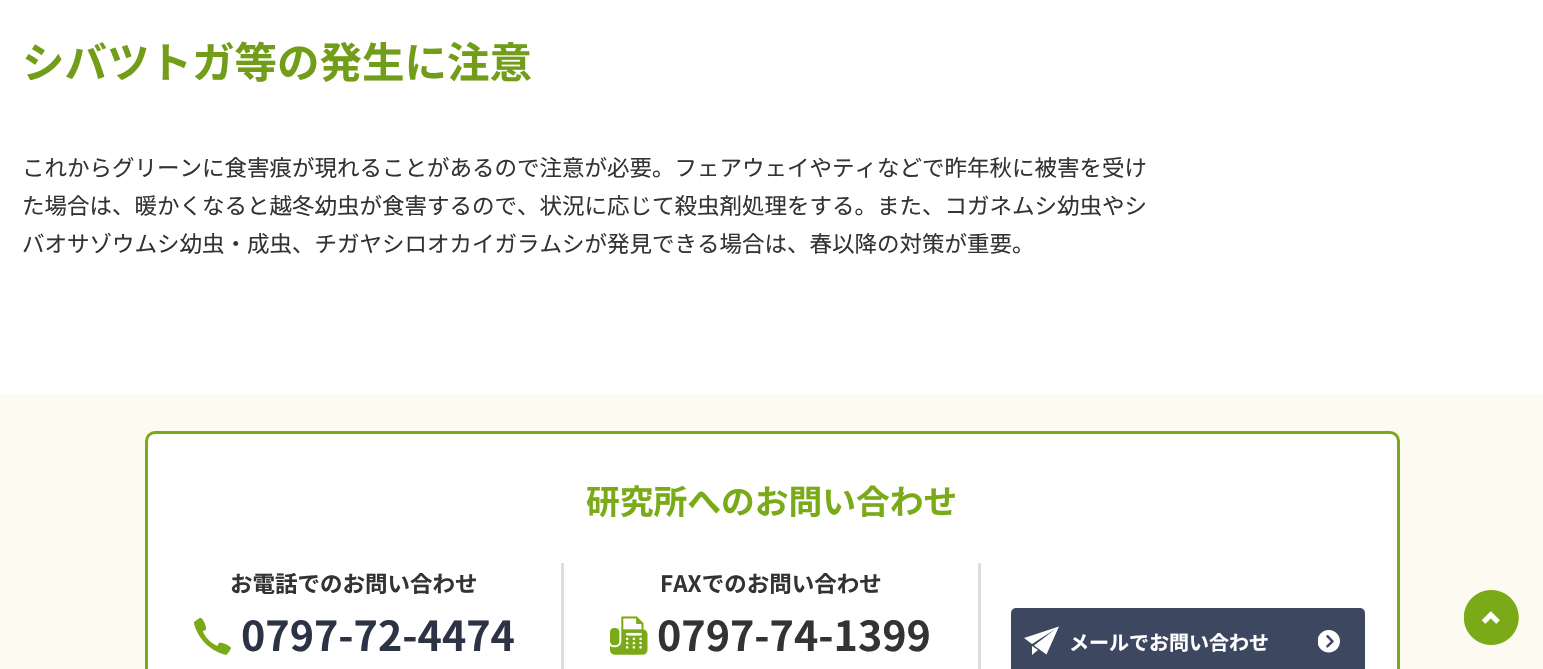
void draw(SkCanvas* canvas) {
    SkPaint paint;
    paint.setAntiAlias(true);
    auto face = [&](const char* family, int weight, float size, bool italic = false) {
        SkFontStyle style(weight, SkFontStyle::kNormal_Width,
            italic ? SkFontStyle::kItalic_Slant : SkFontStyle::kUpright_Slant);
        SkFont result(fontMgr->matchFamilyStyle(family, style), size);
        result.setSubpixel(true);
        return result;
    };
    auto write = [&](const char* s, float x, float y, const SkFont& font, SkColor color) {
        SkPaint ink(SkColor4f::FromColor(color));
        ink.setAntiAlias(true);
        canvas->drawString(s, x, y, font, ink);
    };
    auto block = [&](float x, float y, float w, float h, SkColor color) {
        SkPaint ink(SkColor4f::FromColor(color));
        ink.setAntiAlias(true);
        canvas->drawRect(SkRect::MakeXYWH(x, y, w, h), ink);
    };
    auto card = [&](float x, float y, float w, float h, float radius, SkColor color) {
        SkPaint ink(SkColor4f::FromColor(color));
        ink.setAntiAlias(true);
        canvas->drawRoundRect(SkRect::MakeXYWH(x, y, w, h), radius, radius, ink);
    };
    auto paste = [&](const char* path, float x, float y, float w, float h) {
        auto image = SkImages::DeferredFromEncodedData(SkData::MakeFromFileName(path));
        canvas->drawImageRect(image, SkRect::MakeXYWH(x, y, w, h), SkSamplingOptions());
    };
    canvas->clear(SK_ColorWHITE);
    auto kFont1 = face("Noto Sans JP", 700, 42.5f);
    write("シバツトガ等の発生に注意", 22, 78, kFont1, SkColorSetRGB(114, 157, 24));
    auto kFont2 = face("Noto Sans JP", 400, 22.5f);
    write("これからグリーンに食害痕が現れることがあるので注意が必要。フェアウェイやティなどで昨年秋に被害を受け", 22, 176, kFont2, SkColorSetRGB(51, 51, 51));
    write("た場合は、暖かくなると越冬幼虫が食害するので、状況に応じて殺虫剤処理をする。また、コガネムシ幼虫やシ", 22, 214, kFont2, SkColorSetRGB(51, 51, 51));
    write("バオサゾウムシ幼虫・成虫、チガヤシロオカイガラムシが発見できる場合は、春以降の対策が重要。", 22, 252, kFont2, SkColorSetRGB(51, 51, 51));
    block(0, 394, 1543, 275, SkColorSetRGB(252, 250, 241));
    paint.setColor(SK_ColorWHITE);
    canvas->drawRoundRect(SkRect::MakeXYWH(146.5f, 432.5f, 1252, 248), 8.5f, 8.5f, paint);
    paint.setStyle(SkPaint::kStroke_Style);
    paint.setStrokeWidth(3);
    paint.setColor(SkColorSetRGB(122, 170, 23));
    canvas->drawRoundRect(SkRect::MakeXYWH(146.5f, 432.5f, 1252, 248), 8.5f, 8.5f, paint);
    auto kFont3 = face("Noto Sans JP", 700, 33.75f);
    write("研究所へのお問い合わせ", 586, 514, kFont3, SkColorSetRGB(122, 170, 23));
    block(561, 563, 3, 106, SkColorSetRGB(221, 221, 221));
    auto kFont4 = face("Noto Sans JP", 700, 22.5f);
    write("お電話でのお問い合わせ", 230, 592, kFont4, SkColorSetRGB(51, 51, 51));
    paste("pic1.png", 194, 618, 37, 37);
    auto kFont5 = face("Noto Sans JP", 700, 41.25f);
    write("0797-72-4474", 241, 651, kFont5, SkColorSetRGB(44, 51, 69));
    block(978, 563, 3, 106, SkColorSetRGB(221, 221, 221));
    write("FAXでのお問い合わせ", 660, 592, kFont4, SkColorSetRGB(51, 51, 51));
    paste("pic2.png", 610, 616, 38, 39);
    write("0797-74-1399", 657, 651, kFont5, SkColorSetRGB(51, 51, 51));
    card(1011, 608, 354, 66, 5, SkColorSetRGB(62, 71, 96));
    paint.setStyle(SkPaint::kFill_Style);
    paint.setColor(SK_ColorWHITE);
    canvas->drawPath(SkPathBuilder().moveTo(1032, 655).lineTo(1038, 650).lineTo(1032, 646).close().detach(), paint);
    canvas->drawPath(SkPathBuilder().moveTo(1024, 638).lineTo(1032, 644).lineTo(1055.5f, 629).lineTo(1034, 645.5f).lineTo(1046.5f, 654.5f).lineTo(1059, 626.5f).close().detach(), paint);
    auto kFont6 = face("Noto Sans JP", 700, 20);
    write("メールでお問い合わせ", 1069, 650, kFont6, SK_ColorWHITE);
    paste("pic3.png", 1318, 630, 22, 23);
    paste("pic4.png", 1464, 590, 55, 55);
}
